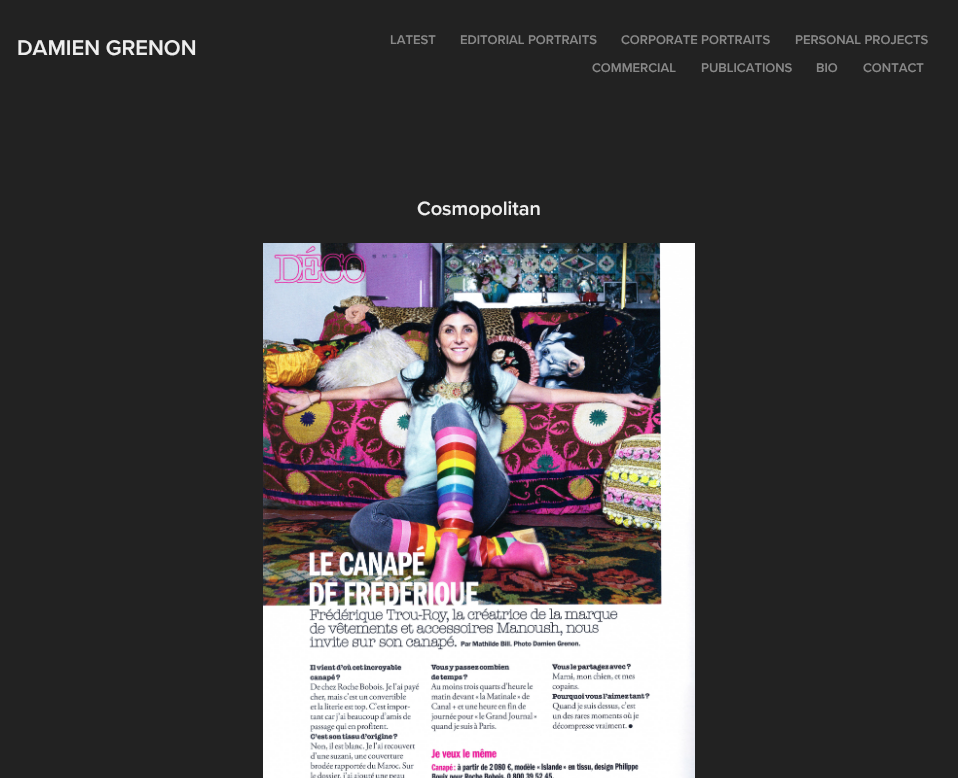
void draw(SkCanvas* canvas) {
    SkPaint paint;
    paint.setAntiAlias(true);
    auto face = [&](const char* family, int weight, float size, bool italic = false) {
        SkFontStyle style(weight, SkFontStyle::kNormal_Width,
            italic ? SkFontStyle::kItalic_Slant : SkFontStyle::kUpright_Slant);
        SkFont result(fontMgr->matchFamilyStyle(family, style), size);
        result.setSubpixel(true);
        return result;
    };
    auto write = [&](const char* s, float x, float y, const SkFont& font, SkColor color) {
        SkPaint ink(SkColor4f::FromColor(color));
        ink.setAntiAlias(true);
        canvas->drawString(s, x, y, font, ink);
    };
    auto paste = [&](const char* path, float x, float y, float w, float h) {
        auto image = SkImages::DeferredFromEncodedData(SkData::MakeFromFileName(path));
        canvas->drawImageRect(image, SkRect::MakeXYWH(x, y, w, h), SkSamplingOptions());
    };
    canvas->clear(SkColorSetRGB(34, 34, 34));
    auto kFont1 = face("Proxima Nova", 600, 22);
    write("DAMIEN GRENON", 17, 55, kFont1, SkColorSetRGB(238, 238, 238));
    auto kFont2 = face("Proxima Nova", 600, 13);
    write("LATEST", 390, 44, kFont2, SkColorSetRGB(136, 136, 136));
    write("EDITORIAL PORTRAITS", 460, 44, kFont2, SkColorSetRGB(136, 136, 136));
    write("CORPORATE PORTRAITS", 621, 44, kFont2, SkColorSetRGB(136, 136, 136));
    write("PERSONAL PROJECTS", 795, 44, kFont2, SkColorSetRGB(136, 136, 136));
    write("COMMERCIAL", 592, 72, kFont2, SkColorSetRGB(136, 136, 136));
    write("PUBLICATIONS", 701, 72, kFont2, SkColorSetRGB(136, 136, 136));
    write("BIO", 816, 72, kFont2, SkColorSetRGB(136, 136, 136));
    write("CONTACT", 863, 72, kFont2, SkColorSetRGB(136, 136, 136));
    auto kFont3 = face("Proxima Nova", 600, 20);
    write("Cosmopolitan", 417, 215, kFont3, SkColorSetRGB(238, 238, 238));
    paste("pic1.png", 263, 243, 432, 535);
}
